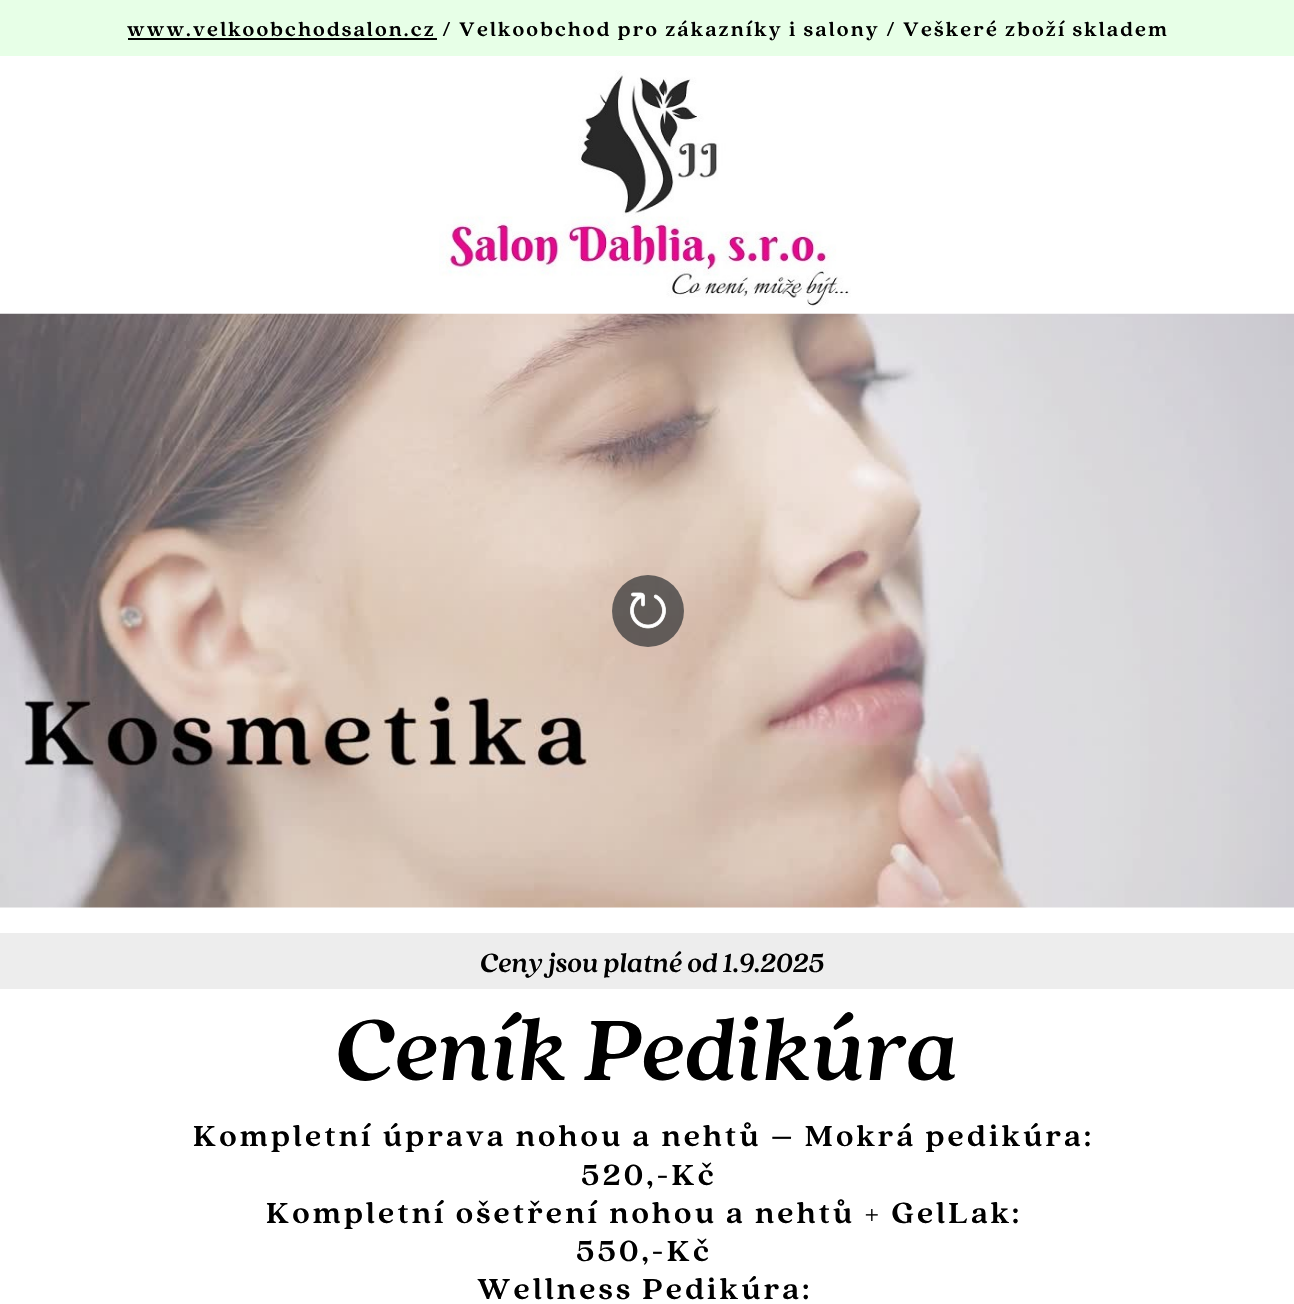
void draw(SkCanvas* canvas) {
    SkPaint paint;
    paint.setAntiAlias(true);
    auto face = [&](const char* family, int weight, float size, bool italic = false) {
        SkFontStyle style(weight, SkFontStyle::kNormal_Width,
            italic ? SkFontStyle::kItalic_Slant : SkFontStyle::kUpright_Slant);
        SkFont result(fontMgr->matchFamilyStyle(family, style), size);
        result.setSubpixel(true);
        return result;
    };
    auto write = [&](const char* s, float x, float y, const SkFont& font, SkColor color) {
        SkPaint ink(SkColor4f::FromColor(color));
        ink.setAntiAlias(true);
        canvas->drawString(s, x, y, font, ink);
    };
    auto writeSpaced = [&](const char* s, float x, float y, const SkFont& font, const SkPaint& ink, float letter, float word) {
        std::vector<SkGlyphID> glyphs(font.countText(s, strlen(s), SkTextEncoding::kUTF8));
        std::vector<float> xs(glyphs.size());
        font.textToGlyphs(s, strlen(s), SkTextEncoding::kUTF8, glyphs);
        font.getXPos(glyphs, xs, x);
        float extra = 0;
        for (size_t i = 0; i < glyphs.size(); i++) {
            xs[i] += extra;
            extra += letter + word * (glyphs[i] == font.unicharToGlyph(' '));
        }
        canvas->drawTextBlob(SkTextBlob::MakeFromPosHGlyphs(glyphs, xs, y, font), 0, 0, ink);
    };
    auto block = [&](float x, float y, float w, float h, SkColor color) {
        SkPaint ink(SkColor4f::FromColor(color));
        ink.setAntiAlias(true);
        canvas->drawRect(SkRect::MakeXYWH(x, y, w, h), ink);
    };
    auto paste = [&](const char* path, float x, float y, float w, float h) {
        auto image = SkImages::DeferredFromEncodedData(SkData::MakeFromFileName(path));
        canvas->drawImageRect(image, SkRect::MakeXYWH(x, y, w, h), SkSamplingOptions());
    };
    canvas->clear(SkColorSetRGB(231, 255, 231));
    block(128, 38, 309, 2, SK_ColorBLACK);
    auto kFont1 = face("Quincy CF", 700, 21.65f);
    paint.setColor(SK_ColorBLACK);
    writeSpaced("www.velkoobchodsalon.cz / Velkoobchod pro zákazníky i salony / Veškeré zboží skladem", 127, 36, kFont1, paint, 2.17f, 0);
    block(0, 56, 1294, 258, SK_ColorWHITE);
    paste("pic1.png", 439, 70, 412, 238);
    block(0, 907, 1294, 26, SK_ColorWHITE);
    paste("pic2.png", 0, 313, 1294, 595);
    paint.setColor(SkColorSetARGB(153, 17, 23, 29));
    canvas->drawCircle(648, 611, 36, paint);
    paste("pic3.png", 630, 592, 36, 37);
    block(0, 933, 1294, 56, SkColorSetRGB(237, 237, 237));
    auto kFont2 = face("Quincy CF", 700, 29, true);
    write("Ceny jsou platné od 1.9.2025", 480, 972, kFont2, SK_ColorBLACK);
    block(0, 989, 1294, 315, SK_ColorWHITE);
    auto kFont3 = face("Quincy CF", 700, 95, true);
    write("Ceník Pedikúra", 335, 1080, kFont3, SK_ColorBLACK);
    auto kFont4 = face("Quincy CF", 700, 32.1f);
    paint.setColor(SK_ColorBLACK);
    writeSpaced("Kompletní úprava nohou a nehtů – Mokrá pedikúra:", 193, 1146, kFont4, paint, 3.2f, 0);
    writeSpaced("520,-Kč", 581, 1185, kFont4, paint, 3.2f, 0);
    writeSpaced("Kompletní ošetření nohou a nehtů + GelLak:", 266, 1223, kFont4, paint, 3.2f, 0);
    writeSpaced("550,-Kč", 576, 1261, kFont4, paint, 3.2f, 0);
    writeSpaced("Wellness Pedikúra:", 477, 1299, kFont4, paint, 3.2f, 0);
}
